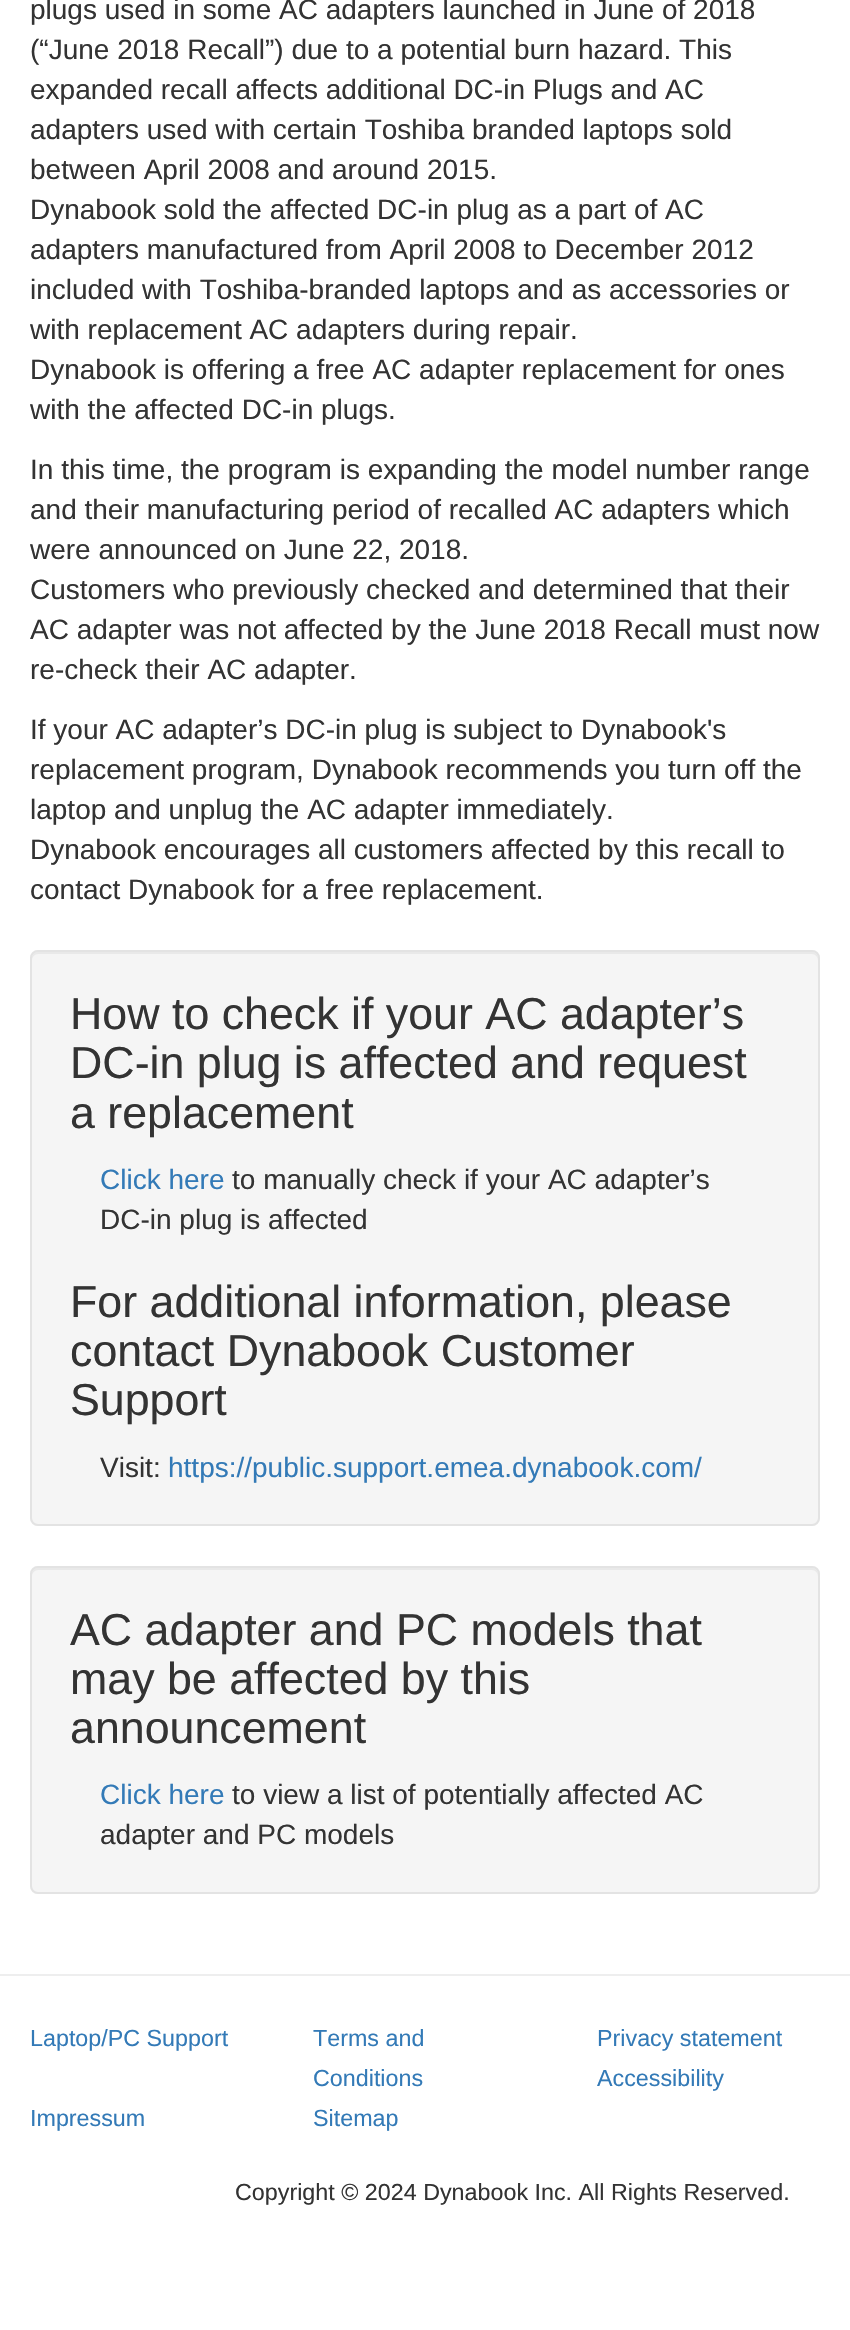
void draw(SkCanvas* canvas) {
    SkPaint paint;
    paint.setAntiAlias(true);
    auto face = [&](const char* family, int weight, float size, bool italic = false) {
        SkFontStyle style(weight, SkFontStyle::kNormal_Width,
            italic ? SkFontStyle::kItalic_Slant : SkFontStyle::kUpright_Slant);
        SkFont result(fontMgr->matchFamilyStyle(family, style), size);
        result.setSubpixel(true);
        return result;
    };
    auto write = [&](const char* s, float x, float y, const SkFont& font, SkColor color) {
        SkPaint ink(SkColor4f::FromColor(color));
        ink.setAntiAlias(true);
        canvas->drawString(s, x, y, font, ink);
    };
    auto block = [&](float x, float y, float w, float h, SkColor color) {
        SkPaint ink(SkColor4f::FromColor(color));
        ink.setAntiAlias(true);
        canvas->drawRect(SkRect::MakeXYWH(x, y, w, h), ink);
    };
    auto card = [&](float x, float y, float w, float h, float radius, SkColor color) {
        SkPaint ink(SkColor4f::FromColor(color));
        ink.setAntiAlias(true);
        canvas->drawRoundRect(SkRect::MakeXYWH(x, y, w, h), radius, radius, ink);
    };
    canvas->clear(SK_ColorWHITE);
    auto kFont1 = face("Liberation Sans", 400, 28);
    write("plugs used in some AC adapters launched in June of 2018", 30, 19, kFont1, SkColorSetRGB(51, 51, 51));
    write("(“June 2018 Recall”) due to a potential burn hazard. This", 30, 59, kFont1, SkColorSetRGB(51, 51, 51));
    write("expanded recall affects additional DC-in Plugs and AC", 30, 99, kFont1, SkColorSetRGB(51, 51, 51));
    write("adapters used with certain Toshiba branded laptops sold", 30, 139, kFont1, SkColorSetRGB(51, 51, 51));
    write("between April 2008 and around 2015.", 30, 179, kFont1, SkColorSetRGB(51, 51, 51));
    write("Dynabook sold the affected DC-in plug as a part of AC", 30, 219, kFont1, SkColorSetRGB(51, 51, 51));
    write("adapters manufactured from April 2008 to December 2012", 30, 259, kFont1, SkColorSetRGB(51, 51, 51));
    write("included with Toshiba-branded laptops and as accessories or", 30, 299, kFont1, SkColorSetRGB(51, 51, 51));
    write("with replacement AC adapters during repair.", 30, 339, kFont1, SkColorSetRGB(51, 51, 51));
    write("Dynabook is offering a free AC adapter replacement for ones", 30, 379, kFont1, SkColorSetRGB(51, 51, 51));
    write("with the affected DC-in plugs.", 30, 419, kFont1, SkColorSetRGB(51, 51, 51));
    write("In this time, the program is expanding the model number range", 30, 479, kFont1, SkColorSetRGB(51, 51, 51));
    write("and their manufacturing period of recalled AC adapters which", 30, 519, kFont1, SkColorSetRGB(51, 51, 51));
    write("were announced on June 22, 2018.", 30, 559, kFont1, SkColorSetRGB(51, 51, 51));
    write("Customers who previously checked and determined that their", 30, 599, kFont1, SkColorSetRGB(51, 51, 51));
    write("AC adapter was not affected by the June 2018 Recall must now", 30, 639, kFont1, SkColorSetRGB(51, 51, 51));
    write("re-check their AC adapter.", 30, 679, kFont1, SkColorSetRGB(51, 51, 51));
    write("If your AC adapter’s DC-in plug is subject to Dynabook's", 30, 739, kFont1, SkColorSetRGB(51, 51, 51));
    write("replacement program, Dynabook recommends you turn off the", 30, 779, kFont1, SkColorSetRGB(51, 51, 51));
    write("laptop and unplug the AC adapter immediately.", 30, 819, kFont1, SkColorSetRGB(51, 51, 51));
    write("Dynabook encourages all customers affected by this recall to", 30, 859, kFont1, SkColorSetRGB(51, 51, 51));
    write("contact Dynabook for a free replacement.", 30, 899, kFont1, SkColorSetRGB(51, 51, 51));
    card(30, 950, 790, 576, 8, SkColorSetRGB(245, 245, 245));
    paint.setColor(SkColorSetRGB(233, 233, 233));
    canvas->drawPath(SkPathBuilder().moveTo(38, 954).lineTo(812, 954).cubicTo(815, 954, 818, 957, 818, 960).lineTo(818, 958).cubicTo(818, 955, 815, 952, 812, 952).lineTo(38, 952).cubicTo(35, 952, 32, 955, 32, 958).lineTo(32, 960).cubicTo(32, 957, 35, 954, 38, 954).close().detach(), paint);
    paint.setStyle(SkPaint::kStroke_Style);
    paint.setStrokeWidth(2);
    paint.setColor(SkColorSetRGB(227, 227, 227));
    canvas->drawRoundRect(SkRect::MakeXYWH(31, 951, 788, 574), 7, 7, paint);
    auto kFont2 = face("Liberation Sans", 400, 44.75f);
    write("How to check if your AC adapter’s", 70, 1029, kFont2, SkColorSetRGB(51, 51, 51));
    write("DC-in plug is affected and request", 70, 1078, kFont2, SkColorSetRGB(51, 51, 51));
    write("a replacement", 70, 1128, kFont2, SkColorSetRGB(51, 51, 51));
    write("Click here", 100, 1189, kFont1, SkColorSetRGB(51, 122, 183));
    write("to manually check if your AC adapter’s", 232, 1189, kFont1, SkColorSetRGB(51, 51, 51));
    write("DC-in plug is affected", 100, 1229, kFont1, SkColorSetRGB(51, 51, 51));
    write("For additional information, please", 70, 1317, kFont2, SkColorSetRGB(51, 51, 51));
    write("contact Dynabook Customer", 70, 1366, kFont2, SkColorSetRGB(51, 51, 51));
    write("Support", 70, 1415, kFont2, SkColorSetRGB(51, 51, 51));
    write("Visit:", 100, 1477, kFont1, SkColorSetRGB(51, 51, 51));
    write("https://public.support.emea.dynabook.com/", 168, 1477, kFont1, SkColorSetRGB(51, 122, 183));
    card(30, 1566, 790, 328, 8, SkColorSetRGB(245, 245, 245));
    paint.setStyle(SkPaint::kFill_Style);
    paint.setColor(SkColorSetRGB(233, 233, 233));
    canvas->drawPath(SkPathBuilder().moveTo(38, 1570).lineTo(812, 1570).cubicTo(815, 1570, 818, 1573, 818, 1576).lineTo(818, 1574).cubicTo(818, 1571, 815, 1568, 812, 1568).lineTo(38, 1568).cubicTo(35, 1568, 32, 1571, 32, 1574).lineTo(32, 1576).cubicTo(32, 1573, 35, 1570, 38, 1570).close().detach(), paint);
    paint.setStyle(SkPaint::kStroke_Style);
    paint.setColor(SkColorSetRGB(227, 227, 227));
    canvas->drawRoundRect(SkRect::MakeXYWH(31, 1567, 788, 326), 7, 7, paint);
    write("AC adapter and PC models that", 70, 1645, kFont2, SkColorSetRGB(51, 51, 51));
    write("may be affected by this", 70, 1694, kFont2, SkColorSetRGB(51, 51, 51));
    write("announcement", 70, 1743, kFont2, SkColorSetRGB(51, 51, 51));
    write("Click here", 100, 1804, kFont1, SkColorSetRGB(51, 122, 183));
    write("to view a list of potentially affected AC", 232, 1804, kFont1, SkColorSetRGB(51, 51, 51));
    write("adapter and PC models", 100, 1844, kFont1, SkColorSetRGB(51, 51, 51));
    block(0, 1974, 850, 2, SkColorSetRGB(238, 238, 238));
    auto kFont3 = face("Liberation Sans", 400, 23.3f);
    write("Laptop/PC Support", 30, 2046, kFont3, SkColorSetRGB(51, 122, 183));
    write("Terms and", 313, 2046, kFont3, SkColorSetRGB(51, 122, 183));
    write("Conditions", 313, 2086, kFont3, SkColorSetRGB(51, 122, 183));
    write("Privacy statement", 597, 2046, kFont3, SkColorSetRGB(51, 122, 183));
    write("Accessibility", 597, 2086, kFont3, SkColorSetRGB(51, 122, 183));
    write("Impressum", 30, 2126, kFont3, SkColorSetRGB(51, 122, 183));
    write("Sitemap", 313, 2126, kFont3, SkColorSetRGB(51, 122, 183));
    write("Copyright © 2024 Dynabook Inc. All Rights Reserved.", 235, 2200, kFont3, SkColorSetRGB(51, 51, 51));
}
